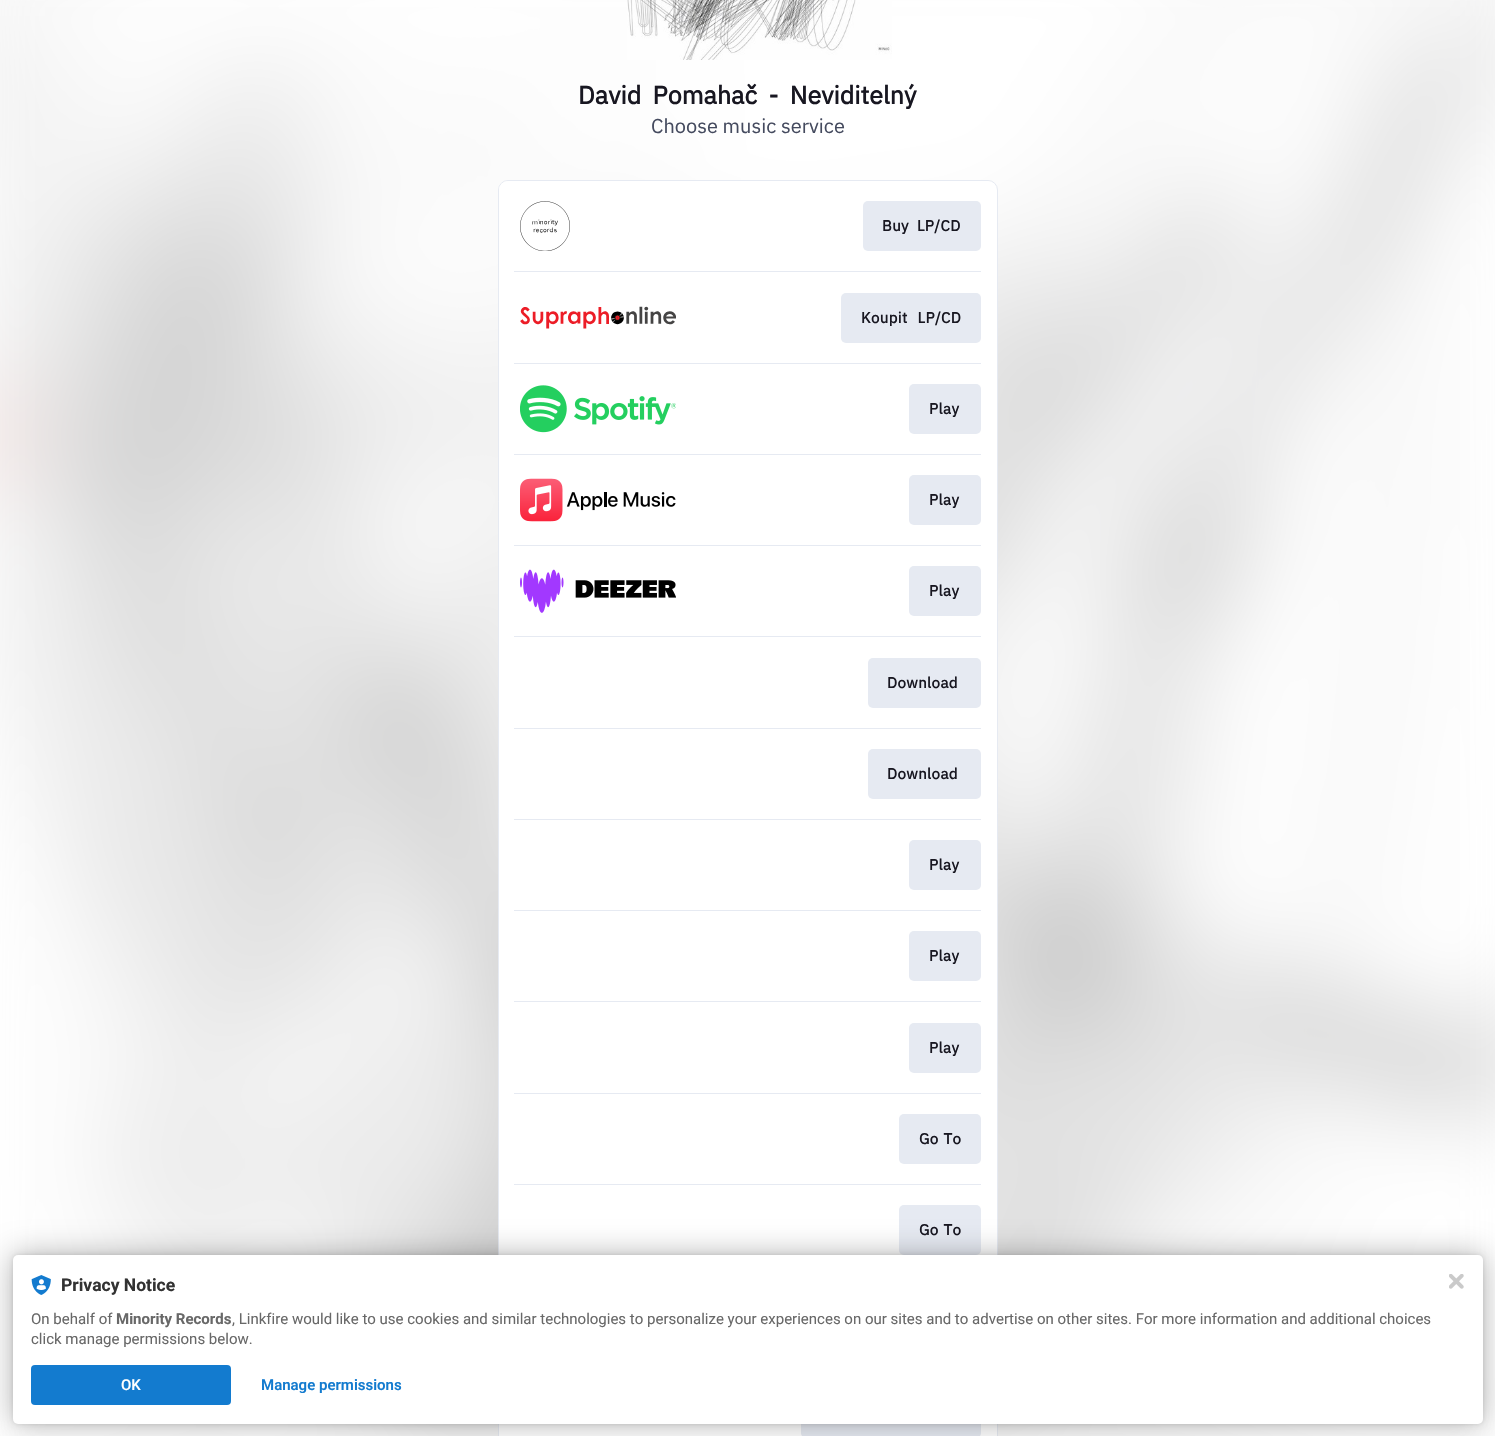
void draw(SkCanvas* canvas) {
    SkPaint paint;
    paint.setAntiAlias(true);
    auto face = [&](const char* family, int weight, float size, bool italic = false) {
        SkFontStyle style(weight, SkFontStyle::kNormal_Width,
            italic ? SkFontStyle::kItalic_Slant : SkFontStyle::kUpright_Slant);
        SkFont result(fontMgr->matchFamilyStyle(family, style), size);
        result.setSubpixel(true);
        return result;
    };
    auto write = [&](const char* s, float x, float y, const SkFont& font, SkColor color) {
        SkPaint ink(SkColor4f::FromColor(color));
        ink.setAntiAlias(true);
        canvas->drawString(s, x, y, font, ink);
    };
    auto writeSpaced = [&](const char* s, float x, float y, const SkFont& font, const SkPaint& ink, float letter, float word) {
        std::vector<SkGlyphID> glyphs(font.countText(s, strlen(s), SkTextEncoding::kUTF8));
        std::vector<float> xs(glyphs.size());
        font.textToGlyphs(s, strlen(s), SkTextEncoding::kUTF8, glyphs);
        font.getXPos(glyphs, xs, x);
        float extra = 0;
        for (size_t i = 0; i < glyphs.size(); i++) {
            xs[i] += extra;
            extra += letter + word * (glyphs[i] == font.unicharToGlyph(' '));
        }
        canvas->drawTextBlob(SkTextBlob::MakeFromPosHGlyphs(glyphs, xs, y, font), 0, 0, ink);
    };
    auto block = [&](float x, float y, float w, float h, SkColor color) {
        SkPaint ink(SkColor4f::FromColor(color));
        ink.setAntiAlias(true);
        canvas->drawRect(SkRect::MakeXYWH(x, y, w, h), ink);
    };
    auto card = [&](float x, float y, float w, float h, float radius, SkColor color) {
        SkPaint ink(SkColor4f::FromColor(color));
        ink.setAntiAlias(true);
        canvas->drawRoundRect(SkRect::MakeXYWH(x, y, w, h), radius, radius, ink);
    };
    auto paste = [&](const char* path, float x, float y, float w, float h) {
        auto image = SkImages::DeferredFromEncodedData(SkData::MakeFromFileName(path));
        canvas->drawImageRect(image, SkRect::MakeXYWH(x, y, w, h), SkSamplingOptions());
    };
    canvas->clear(SK_ColorWHITE);
    paste("pic1.png", 0, 0, 1495, 1436);
    paste("pic2.png", 627, 0, 265, 60);
    auto kFont1 = face("IBM Plex Sans", 700, 25);
    paint.setColor(SkColorSetRGB(24, 23, 33));
    writeSpaced("David Pomahač - Neviditelný", 578, 104, kFont1, paint, 0, 5.5f);
    auto kFont2 = face("IBM Plex Sans", 400, 20);
    write("Choose music service", 651, 133, kFont2, SkColorSetRGB(69, 75, 95));
    paint.setColor(SK_ColorWHITE);
    canvas->drawRoundRect(SkRect::MakeXYWH(498.5f, 180.5f, 499, 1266), 9.5f, 9.5f, paint);
    paint.setStyle(SkPaint::kStroke_Style);
    paint.setStrokeWidth(1);
    paint.setColor(SkColorSetRGB(230, 234, 242));
    canvas->drawRoundRect(SkRect::MakeXYWH(498.5f, 180.5f, 499, 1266), 9.5f, 9.5f, paint);
    card(499, 181, 497, 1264, 9, SK_ColorWHITE);
    paste("pic3.png", 520, 201, 50, 50);
    card(863, 201, 118, 50, 5, SkColorSetRGB(230, 234, 242));
    auto kFont3 = face("IBM Plex Sans", 700, 15);
    paint.setStyle(SkPaint::kFill_Style);
    paint.setColor(SkColorSetRGB(24, 23, 33));
    writeSpaced("Buy LP/CD", 882, 231, kFont3, paint, 0.4f, 4);
    block(514, 271, 467, 1, SkColorSetRGB(230, 234, 242));
    paste("pic4.png", 520, 306, 156, 23);
    card(841, 293, 140, 50, 5, SkColorSetRGB(230, 234, 242));
    writeSpaced("Koupit LP/CD", 861, 323, kFont3, paint, 0.4f, 6);
    block(514, 363, 467, 1, SkColorSetRGB(230, 234, 242));
    paste("pic5.png", 520, 385, 156, 48);
    card(909, 384, 72, 50, 5, SkColorSetRGB(230, 234, 242));
    writeSpaced("Play", 929, 414, kFont3, paint, 0.4f, 0);
    block(514, 454, 467, 1, SkColorSetRGB(230, 234, 242));
    paste("pic6.png", 520, 478, 156, 44);
    card(909, 475, 72, 50, 5, SkColorSetRGB(230, 234, 242));
    writeSpaced("Play", 929, 505, kFont3, paint, 0.4f, 0);
    block(514, 545, 467, 1, SkColorSetRGB(230, 234, 242));
    paste("pic7.png", 520, 569, 156, 44);
    card(909, 566, 72, 50, 5, SkColorSetRGB(230, 234, 242));
    writeSpaced("Play", 929, 596, kFont3, paint, 0.4f, 0);
    block(514, 636, 467, 1, SkColorSetRGB(230, 234, 242));
    card(868, 658, 113, 50, 5, SkColorSetRGB(230, 234, 242));
    writeSpaced("Download", 887, 688, kFont3, paint, 0.4f, 0);
    block(514, 728, 467, 1, SkColorSetRGB(230, 234, 242));
    card(868, 749, 113, 50, 5, SkColorSetRGB(230, 234, 242));
    writeSpaced("Download", 887, 779, kFont3, paint, 0.4f, 0);
    block(514, 819, 467, 1, SkColorSetRGB(230, 234, 242));
    card(909, 840, 72, 50, 5, SkColorSetRGB(230, 234, 242));
    writeSpaced("Play", 929, 870, kFont3, paint, 0.4f, 0);
    block(514, 910, 467, 1, SkColorSetRGB(230, 234, 242));
    card(909, 931, 72, 50, 5, SkColorSetRGB(230, 234, 242));
    writeSpaced("Play", 929, 961, kFont3, paint, 0.4f, 0);
    block(514, 1001, 467, 1, SkColorSetRGB(230, 234, 242));
    card(909, 1023, 72, 50, 5, SkColorSetRGB(230, 234, 242));
    writeSpaced("Play", 929, 1053, kFont3, paint, 0.4f, 0);
    block(514, 1093, 467, 1, SkColorSetRGB(230, 234, 242));
    card(899, 1114, 82, 50, 5, SkColorSetRGB(230, 234, 242));
    writeSpaced("Go To", 919, 1144, kFont3, paint, 0.4f, 1);
    block(514, 1184, 467, 1, SkColorSetRGB(230, 234, 242));
    card(899, 1205, 82, 50, 5, SkColorSetRGB(230, 234, 242));
    writeSpaced("Go To", 919, 1235, kFont3, paint, 0.4f, 1);
    card(801, 1388, 180, 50, 5, SkColorSetRGB(230, 234, 242));
    paint.setColor(SkColorSetARGB(31, 0, 0, 0));
    paint.setMaskFilter(SkMaskFilter::MakeBlur(kNormal_SkBlurStyle, 2.5f));
    canvas->drawRoundRect(SkRect::MakeXYWH(13, 1255, 1470, 169), 5, 5, paint);
    paint.setMaskFilter(nullptr);
    paint.setColor(SkColorSetARGB(77, 0, 0, 0));
    paint.setMaskFilter(SkMaskFilter::MakeBlur(kNormal_SkBlurStyle, 15));
    canvas->drawRoundRect(SkRect::MakeXYWH(13, 1255, 1470, 169), 5, 5, paint);
    paint.setMaskFilter(nullptr);
    card(13, 1255, 1470, 169, 5, SK_ColorWHITE);
    paste("pic8.png", 31, 1275, 20, 20);
    auto kFont4 = face("Roboto", 700, 17.5f);
    write("Privacy Notice", 61, 1291, kFont4, SkColorSetRGB(50, 50, 50));
    auto kFont5 = face("Roboto", 400, 15);
    write("On behalf of", 31, 1324, kFont5, SkColorSetRGB(104, 104, 104));
    auto kFont6 = face("Roboto", 700, 15);
    write("Minority Records", 116, 1324, kFont6, SkColorSetRGB(104, 104, 104));
    write(", Linkfire would like to use cookies and similar technologies to personalize your experiences on our sites and to advertise on other sites. For more information and additional choices", 232, 1324, kFont5, SkColorSetRGB(104, 104, 104));
    write("click manage permissions below.", 31, 1344, kFont5, SkColorSetRGB(104, 104, 104));
    card(31, 1365, 200, 40, 4, SkColorSetRGB(19, 123, 207));
    auto kFont7 = face("Roboto", 500, 15);
    write("OK", 121, 1390, kFont7, SK_ColorWHITE);
    auto kFont8 = face("Roboto", 600, 15);
    write("Manage permissions", 261, 1390, kFont8, SkColorSetRGB(19, 123, 207));
    paste("pic9.png", 1449, 1274, 15, 15);
}
